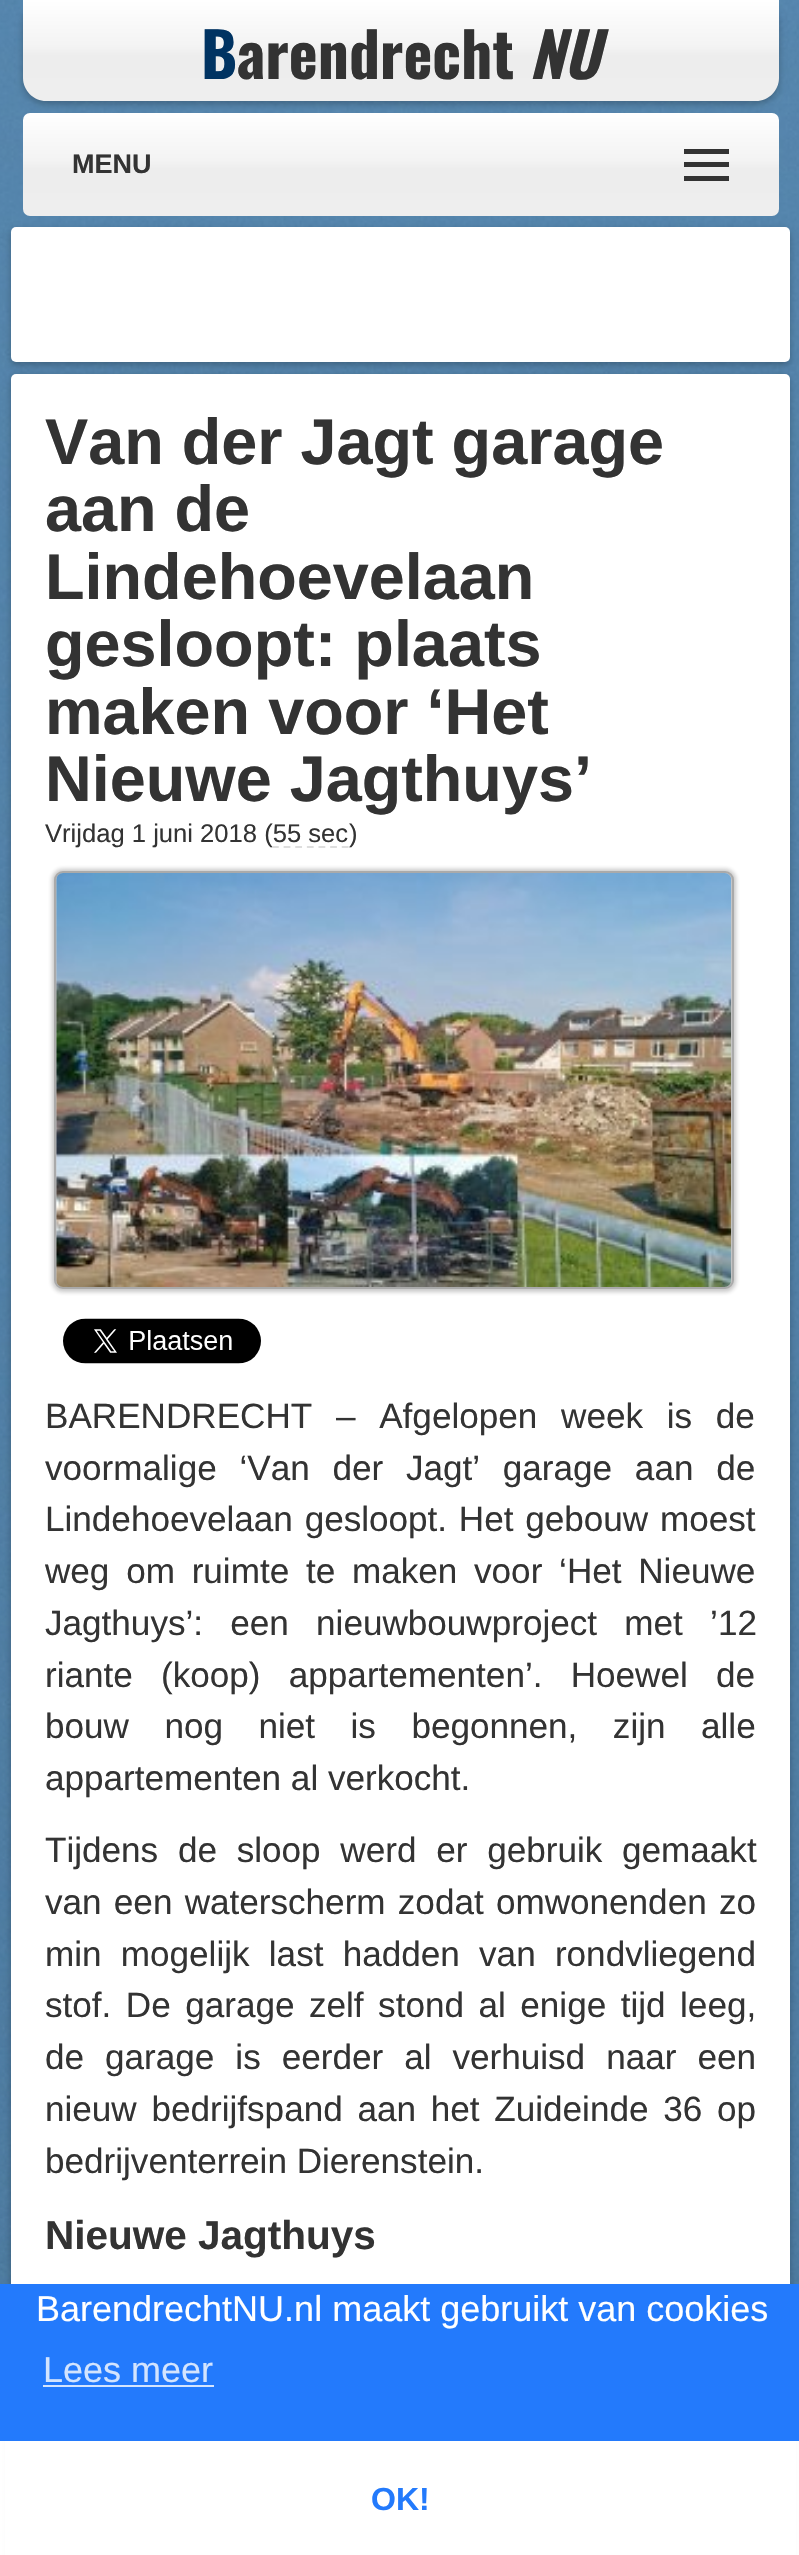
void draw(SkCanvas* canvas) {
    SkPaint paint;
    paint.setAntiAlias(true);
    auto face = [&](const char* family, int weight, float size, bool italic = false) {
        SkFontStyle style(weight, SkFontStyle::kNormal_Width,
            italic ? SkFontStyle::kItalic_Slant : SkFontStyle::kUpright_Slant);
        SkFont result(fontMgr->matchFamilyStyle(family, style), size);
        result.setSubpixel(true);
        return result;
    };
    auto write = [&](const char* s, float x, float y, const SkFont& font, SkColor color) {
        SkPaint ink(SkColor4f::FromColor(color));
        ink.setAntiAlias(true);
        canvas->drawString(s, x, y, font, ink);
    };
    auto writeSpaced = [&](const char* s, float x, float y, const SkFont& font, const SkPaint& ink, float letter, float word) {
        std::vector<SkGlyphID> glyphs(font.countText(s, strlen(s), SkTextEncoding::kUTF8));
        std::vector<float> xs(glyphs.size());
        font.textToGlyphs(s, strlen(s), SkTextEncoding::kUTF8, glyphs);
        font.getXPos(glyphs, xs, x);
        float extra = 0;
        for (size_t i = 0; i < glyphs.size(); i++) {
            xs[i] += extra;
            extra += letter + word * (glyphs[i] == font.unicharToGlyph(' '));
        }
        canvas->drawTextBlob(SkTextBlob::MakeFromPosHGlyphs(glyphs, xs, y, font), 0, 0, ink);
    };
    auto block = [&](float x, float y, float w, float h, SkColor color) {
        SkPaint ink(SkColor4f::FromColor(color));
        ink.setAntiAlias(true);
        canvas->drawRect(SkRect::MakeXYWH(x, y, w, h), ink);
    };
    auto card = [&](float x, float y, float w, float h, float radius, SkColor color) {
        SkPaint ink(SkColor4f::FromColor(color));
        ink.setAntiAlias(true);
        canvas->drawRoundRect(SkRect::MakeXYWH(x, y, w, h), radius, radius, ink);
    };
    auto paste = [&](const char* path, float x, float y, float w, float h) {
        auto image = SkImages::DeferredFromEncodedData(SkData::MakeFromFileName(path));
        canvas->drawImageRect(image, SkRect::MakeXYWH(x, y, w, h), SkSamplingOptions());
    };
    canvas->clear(SK_ColorWHITE);
    paste("pic1.png", 0, 0, 799, 2284);
    {
        const SkColor colors[] = {SK_ColorWHITE, SkColorSetRGB(243, 243, 243), SkColorSetRGB(237, 237, 237), SkColorSetRGB(238, 238, 238)};
        const float stops[] = {0, 0.46f, 0.55f, 1};
        const SkPoint ends[] = {{401, 112}, {401, 216}};
        paint.setShader(SkGradientShader::MakeLinear(ends, colors, stops, 4, SkTileMode::kClamp));
        paint.setAlpha(255);
    }
    canvas->drawRoundRect(SkRect::MakeXYWH(23, 113, 756, 103), 7, 7, paint);
    paint.setShader(nullptr);
    paint.setColor(SkColorSetARGB(64, 0, 0, 0));
    paint.setMaskFilter(SkMaskFilter::MakeBlur(kNormal_SkBlurStyle, 3.5f));
    canvas->drawRoundRect(SkRect::MakeXYWH(23, 2, 756, 102), 23, 23, paint);
    paint.setMaskFilter(nullptr);
    {
        const SkColor colors[] = {SK_ColorWHITE, SkColorSetRGB(243, 243, 243), SkColorSetRGB(237, 237, 237), SkColorSetRGB(238, 238, 238)};
        const float stops[] = {0, 0.46f, 0.55f, 1};
        const SkPoint ends[] = {{401, 0}, {401, 101}};
        paint.setShader(SkGradientShader::MakeLinear(ends, colors, stops, 4, SkTileMode::kClamp));
        paint.setAlpha(255);
    }
    canvas->drawPath(SkPathBuilder().moveTo(23, 0).lineTo(779, 0).lineTo(779, 78).cubicTo(779, 90.5f, 768.5f, 101, 756, 101).lineTo(46, 101).cubicTo(33.5f, 101, 23, 90.5f, 23, 78).close().detach(), paint);
    auto kFont1 = face("Oswald", 700, 61.5f);
    write("B", 201, 79, kFont1, SkColorSetRGB(0, 51, 98));
    write("arendrecht", 237, 79, kFont1, SkColorSetRGB(51, 51, 51));
    auto kFont2 = face("Oswald", 700, 61.5f, true);
    write("NU", 529, 79, kFont2, SkColorSetRGB(51, 51, 51));
    block(684, 149, 45, 5, SkColorSetRGB(51, 51, 51));
    auto kFont3 = face("Liberation Sans", 700, 27);
    write("MENU", 72, 173, kFont3, SkColorSetRGB(51, 51, 51));
    block(684, 162, 45, 5, SkColorSetRGB(51, 51, 51));
    block(684, 176, 45, 5, SkColorSetRGB(51, 51, 51));
    paint.setShader(nullptr);
    paint.setColor(SkColorSetARGB(64, 0, 0, 0));
    paint.setMaskFilter(SkMaskFilter::MakeBlur(kNormal_SkBlurStyle, 3.5f));
    canvas->drawRoundRect(SkRect::MakeXYWH(11, 376, 779, 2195), 5, 5, paint);
    paint.setMaskFilter(nullptr);
    card(11, 374, 779, 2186, 5, SK_ColorWHITE);
    paint.setMaskFilter(SkMaskFilter::MakeBlur(kNormal_SkBlurStyle, 3.5f));
    canvas->drawRoundRect(SkRect::MakeXYWH(11, 230, 779, 135), 5, 5, paint);
    paint.setMaskFilter(nullptr);
    card(11, 227, 779, 135, 5, SK_ColorWHITE);
    auto kFont4 = face("Liberation Sans", 700, 64.75f);
    write("Van der Jagt garage", 45, 464, kFont4, SkColorSetRGB(51, 51, 51));
    write("aan de", 45, 531, kFont4, SkColorSetRGB(51, 51, 51));
    write("Lindehoevelaan", 45, 599, kFont4, SkColorSetRGB(51, 51, 51));
    write("gesloopt: plaats", 45, 666, kFont4, SkColorSetRGB(51, 51, 51));
    write("maken voor ‘Het", 45, 734, kFont4, SkColorSetRGB(51, 51, 51));
    write("Nieuwe Jagthuys’", 45, 801, kFont4, SkColorSetRGB(51, 51, 51));
    auto kFont5 = face("Liberation Sans", 400, 25.6f);
    write("Vrijdag 1 juni 2018 (55 sec", 45, 842, kFont5, SkColorSetRGB(51, 51, 51));
    paint.setStyle(SkPaint::kStroke_Style);
    paint.setStrokeWidth(2.2f);
    paint.setColor(SkColorSetRGB(221, 221, 221));
    paint.setPathEffect(SkDashPathEffect::Make({{6.75f, 4.88f}}, 0));
    canvas->drawPath(SkPathBuilder().moveTo(272, 847).lineTo(349, 847).detach(), paint);
    paint.setPathEffect(nullptr);
    write(")", 349, 842, kFont5, SkColorSetRGB(51, 51, 51));
    paint.setStyle(SkPaint::kFill_Style);
    paint.setColor(SkColorSetARGB(64, 33, 33, 33));
    paint.setMaskFilter(SkMaskFilter::MakeBlur(kNormal_SkBlurStyle, 2));
    canvas->drawRoundRect(SkRect::MakeXYWH(52, 869, 684, 423), 11, 11, paint);
    paint.setMaskFilter(nullptr);
    paint.setStyle(SkPaint::kStroke_Style);
    paint.setStrokeWidth(2);
    paint.setColor(SkColorSetRGB(170, 170, 170));
    canvas->drawRoundRect(SkRect::MakeXYWH(55, 872, 678, 416), 8, 8, paint);
    paste("pic2.png", 56, 873, 676, 414);
    paste("pic3.png", 63, 1318, 198, 46);
    auto kFont6 = face("Liberation Sans", 400, 35.1f);
    paint.setStyle(SkPaint::kFill_Style);
    paint.setColor(SkColorSetRGB(51, 51, 51));
    writeSpaced("BARENDRECHT – Afgelopen week is de", 45, 1428, kFont6, paint, 0, 14);
    writeSpaced("voormalige ‘Van der Jagt’ garage aan de", 45, 1480, kFont6, paint, 0, 13);
    writeSpaced("Lindehoevelaan gesloopt. Het gebouw moest", 45, 1531, kFont6, paint, 0, 2);
    writeSpaced("weg om ruimte te maken voor ‘Het Nieuwe", 45, 1583, kFont6, paint, 0, 7);
    writeSpaced("Jagthuys’: een nieuwbouwproject met ’12", 45, 1635, kFont6, paint, 0, 17.5f);
    writeSpaced("riante (koop) appartementen’. Hoewel de", 45, 1687, kFont6, paint, 0, 18.5f);
    writeSpaced("bouw nog niet is begonnen, zijn alle", 45, 1738, kFont6, paint, 0, 25.75f);
    write("appartementen al verkocht.", 45, 1790, kFont6, SkColorSetRGB(51, 51, 51));
    writeSpaced("Tijdens de sloop werd er gebruik gemaakt", 45, 1862, kFont6, paint, 0, 10);
    writeSpaced("van een waterscherm zodat omwonenden zo", 45, 1914, kFont6, paint, 0, 2.5f);
    writeSpaced("min mogelijk last hadden van rondvliegend", 45, 1966, kFont6, paint, 0, 9.5f);
    writeSpaced("stof. De garage zelf stond al enige tijd leeg,", 45, 2017, kFont6, paint, 0, 4.75f);
    writeSpaced("de garage is eerder al verhuisd naar een", 45, 2069, kFont6, paint, 0, 11.25f);
    writeSpaced("nieuw bedrijfspand aan het Zuideinde 36 op", 45, 2121, kFont6, paint, 0, 5);
    write("bedrijventerrein Dierenstein.", 45, 2173, kFont6, SkColorSetRGB(51, 51, 51));
    auto kFont7 = face("Liberation Sans", 700, 40.5f);
    write("Nieuwe Jagthuys", 45, 2249, kFont7, SkColorSetRGB(51, 51, 51));
    block(0, 2284, 799, 157, SkColorSetRGB(35, 122, 252));
    auto kFont8 = face("Liberation Sans", 400, 36);
    write("BarendrechtNU.nl maakt gebruikt van cookies", 36, 2321, kFont8, SK_ColorWHITE);
    write("Lees meer", 43, 2382, kFont8, SkColorSetRGB(211, 228, 254));
    block(43, 2385, 171, 2, SkColorSetRGB(211, 228, 254));
    block(5, 2441, 791, 114, SK_ColorWHITE);
    auto kFont9 = face("Liberation Sans", 700, 32);
    write("OK!", 371, 2510, kFont9, SkColorSetRGB(35, 122, 252));
}
